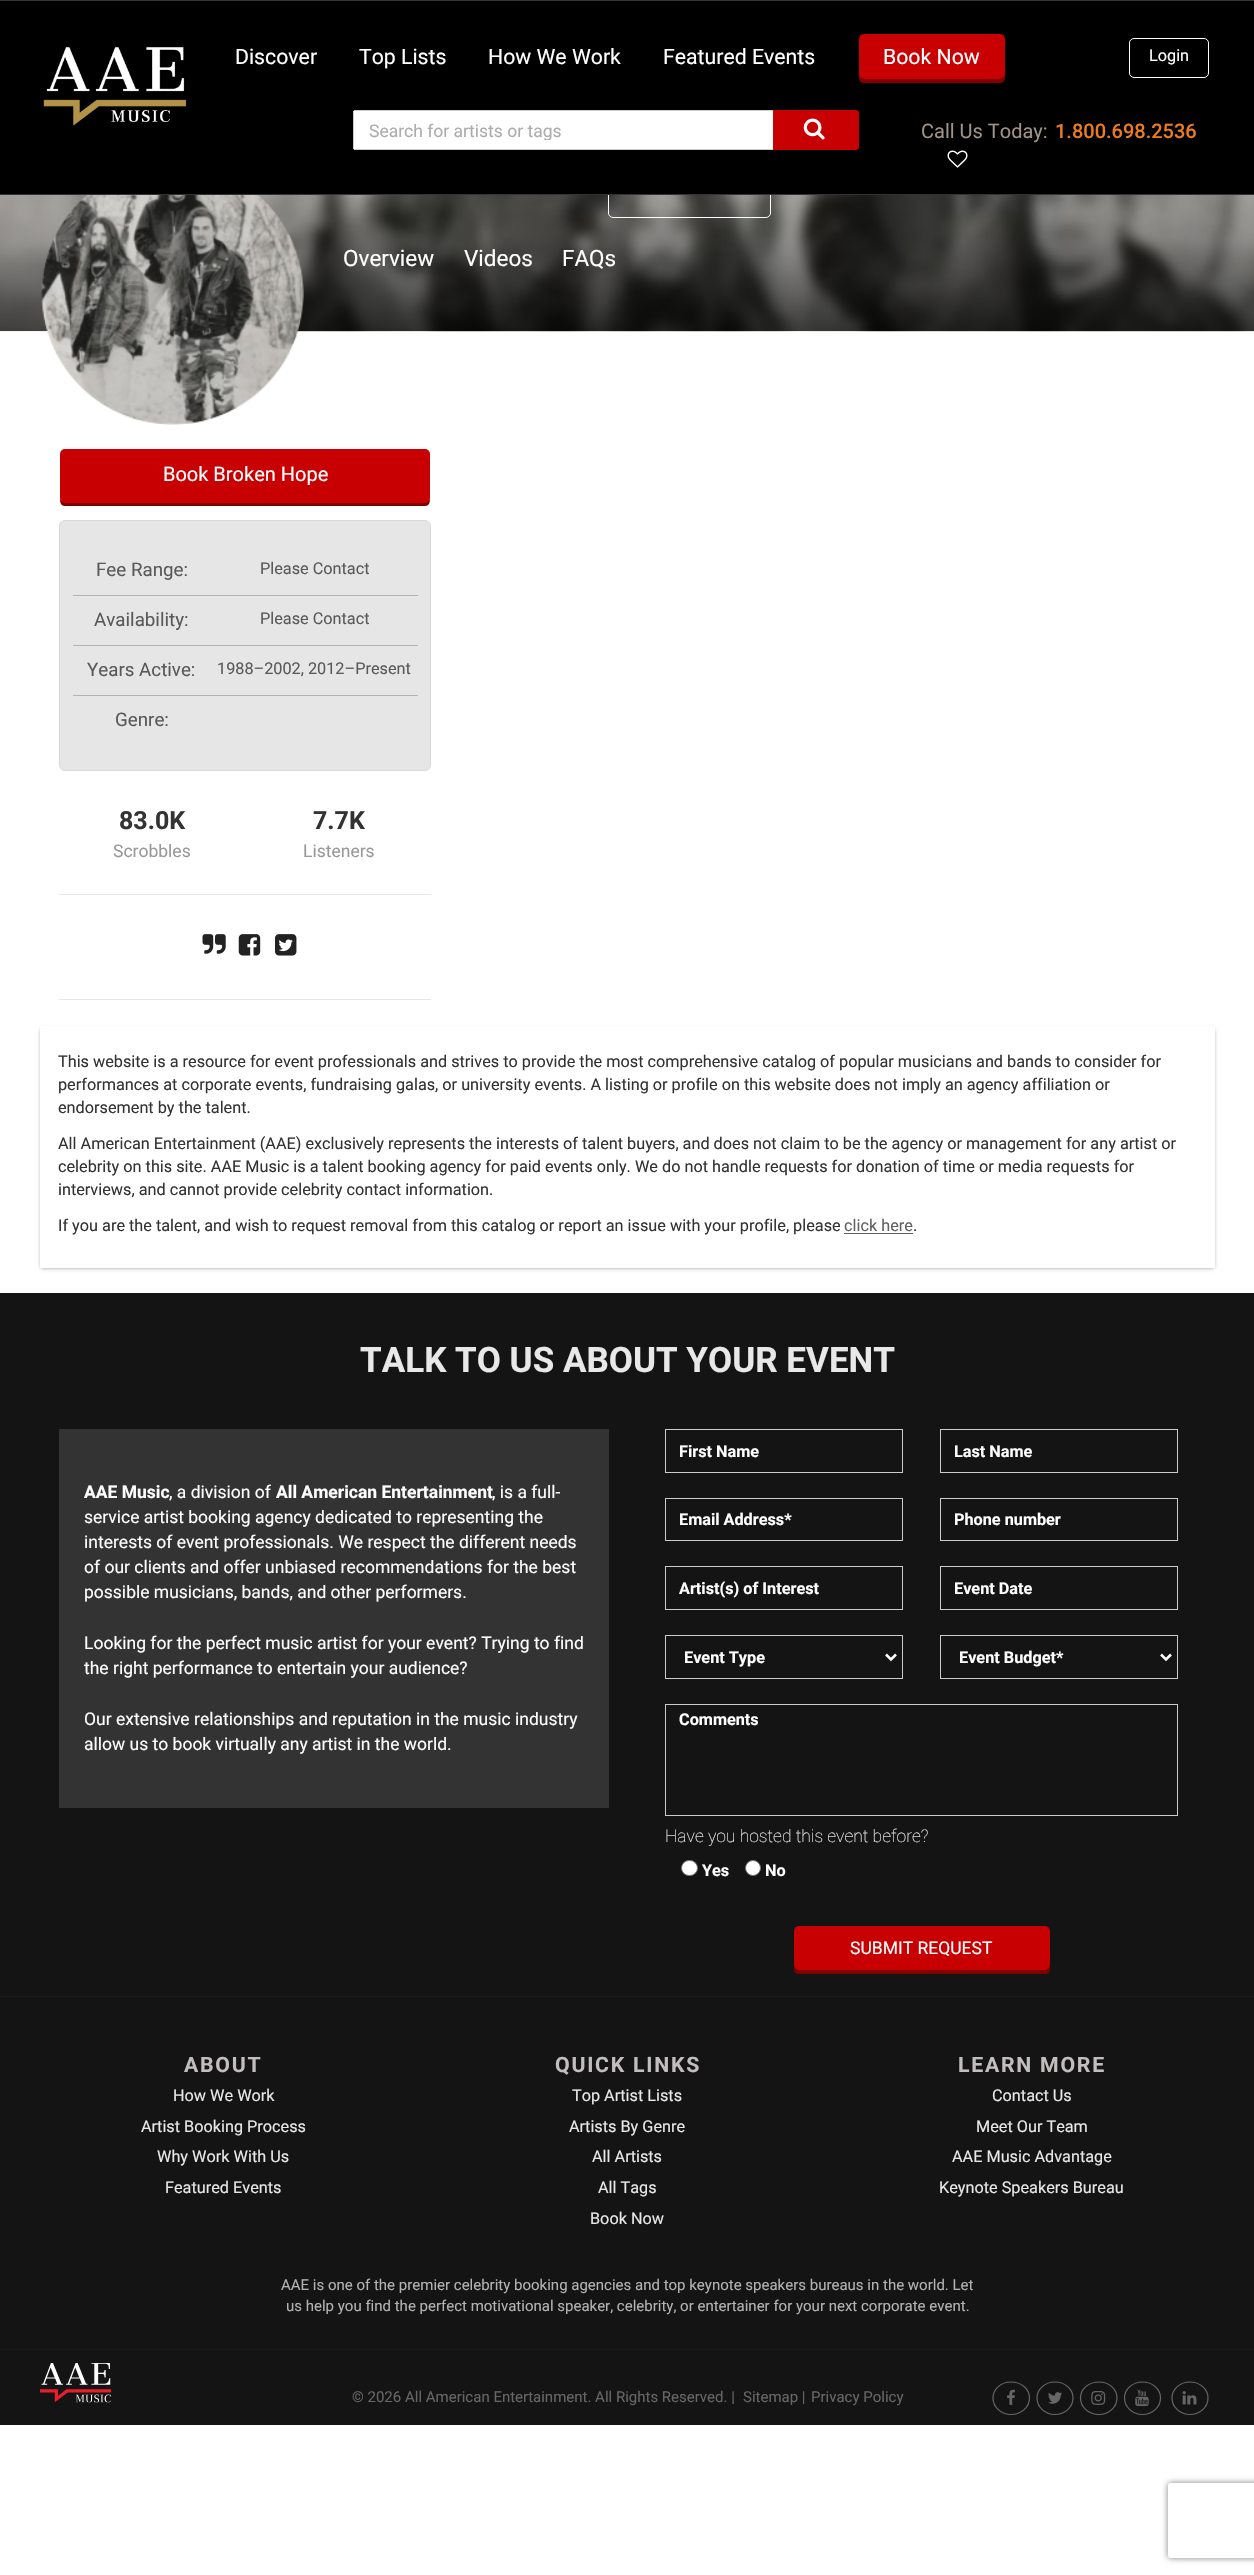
void draw(SkCanvas* canvas) {
    SkPaint paint;
    paint.setAntiAlias(true);
    auto face = [&](const char* family, int weight, float size, bool italic = false) {
        SkFontStyle style(weight, SkFontStyle::kNormal_Width,
            italic ? SkFontStyle::kItalic_Slant : SkFontStyle::kUpright_Slant);
        SkFont result(fontMgr->matchFamilyStyle(family, style), size);
        result.setSubpixel(true);
        return result;
    };
    auto write = [&](const char* s, float x, float y, const SkFont& font, SkColor color) {
        SkPaint ink(SkColor4f::FromColor(color));
        ink.setAntiAlias(true);
        canvas->drawString(s, x, y, font, ink);
    };
    auto writeSpaced = [&](const char* s, float x, float y, const SkFont& font, const SkPaint& ink, float letter, float word) {
        std::vector<SkGlyphID> glyphs(font.countText(s, strlen(s), SkTextEncoding::kUTF8));
        std::vector<float> xs(glyphs.size());
        font.textToGlyphs(s, strlen(s), SkTextEncoding::kUTF8, glyphs);
        font.getXPos(glyphs, xs, x);
        float extra = 0;
        for (size_t i = 0; i < glyphs.size(); i++) {
            xs[i] += extra;
            extra += letter + word * (glyphs[i] == font.unicharToGlyph(' '));
        }
        canvas->drawTextBlob(SkTextBlob::MakeFromPosHGlyphs(glyphs, xs, y, font), 0, 0, ink);
    };
    auto block = [&](float x, float y, float w, float h, SkColor color) {
        SkPaint ink(SkColor4f::FromColor(color));
        ink.setAntiAlias(true);
        canvas->drawRect(SkRect::MakeXYWH(x, y, w, h), ink);
    };
    auto card = [&](float x, float y, float w, float h, float radius, SkColor color) {
        SkPaint ink(SkColor4f::FromColor(color));
        ink.setAntiAlias(true);
        canvas->drawRoundRect(SkRect::MakeXYWH(x, y, w, h), radius, radius, ink);
    };
    auto paste = [&](const char* path, float x, float y, float w, float h) {
        auto image = SkImages::DeferredFromEncodedData(SkData::MakeFromFileName(path));
        canvas->drawImageRect(image, SkRect::MakeXYWH(x, y, w, h), SkSamplingOptions());
    };
    canvas->clear(SK_ColorWHITE);
    paste("pic4.png", 0, 195, 1254, 137);
    paint.setStyle(SkPaint::kStroke_Style);
    paint.setStrokeWidth(1);
    paint.setColor(SK_ColorWHITE);
    canvas->drawRoundRect(SkRect::MakeXYWH(608.5f, 169.5f, 162, 48), 4.5f, 4.5f, paint);
    block(0, 1, 1254, 193, SK_ColorBLACK);
    block(0, 0, 1254, 1, SkColorSetRGB(51, 51, 51));
    block(0, 194, 1254, 1, SkColorSetRGB(51, 51, 51));
    paste("pic1.png", 43, 47, 143, 79);
    auto kFont1 = face("Roboto", 400, 21.25f);
    write("Discover", 235, 64, kFont1, SK_ColorWHITE);
    write("Top Lists", 359, 64, kFont1, SK_ColorWHITE);
    write("How We Work", 488, 64, kFont1, SK_ColorWHITE);
    write("Featured Events", 663, 64, kFont1, SK_ColorWHITE);
    paint.setStyle(SkPaint::kFill_Style);
    paint.setColor(SkColorSetRGB(128, 0, 0));
    canvas->drawPath(SkPathBuilder().moveTo(859, 75).lineTo(859, 78).cubicTo(859, 81, 861, 83, 864, 83).lineTo(1000, 83).cubicTo(1003, 83, 1005, 81, 1005, 78).lineTo(1005, 74).cubicTo(1005, 77, 1003, 79, 1000, 79).lineTo(864, 79).cubicTo(862, 79, 860, 77, 859, 75).close().detach(), paint);
    card(859, 34, 146, 45, 5, SkColorSetRGB(201, 0, 1));
    write("Book Now", 883, 64, kFont1, SK_ColorWHITE);
    paint.setStyle(SkPaint::kStroke_Style);
    paint.setColor(SK_ColorWHITE);
    canvas->drawRoundRect(SkRect::MakeXYWH(1129.5f, 38.5f, 79, 39), 4.5f, 4.5f, paint);
    auto kFont2 = face("Roboto", 400, 16.25f);
    write("Login", 1149, 61, kFont2, SK_ColorWHITE);
    paint.setStyle(SkPaint::kFill_Style);
    paint.setColor(SkColorSetRGB(201, 0, 1));
    canvas->drawPath(SkPathBuilder().moveTo(771.5f, 110.5f).lineTo(856.5f, 110.5f).cubicTo(857.5f, 110.5f, 858.5f, 111.5f, 858.5f, 112.5f).lineTo(858.5f, 147.5f).cubicTo(858.5f, 148.5f, 857.5f, 149.5f, 856.5f, 149.5f).lineTo(771.5f, 149.5f).close().detach(), paint);
    paint.setStyle(SkPaint::kStroke_Style);
    canvas->drawPath(SkPathBuilder().moveTo(771.5f, 110.5f).lineTo(856.5f, 110.5f).cubicTo(857.5f, 110.5f, 858.5f, 111.5f, 858.5f, 112.5f).lineTo(858.5f, 147.5f).cubicTo(858.5f, 148.5f, 857.5f, 149.5f, 856.5f, 149.5f).lineTo(771.5f, 149.5f).close().detach(), paint);
    paint.setStyle(SkPaint::kFill_Style);
    paint.setColor(SK_ColorWHITE);
    canvas->drawPath(SkPathBuilder().moveTo(355.5f, 110).lineTo(773, 110).lineTo(773, 150).lineTo(355.5f, 150).cubicTo(354, 150, 353, 149, 353, 147.5f).lineTo(353, 112.5f).cubicTo(353, 111, 354, 110, 355.5f, 110).close().detach(), paint);
    block(354, 110, 419, 1, SkColorSetRGB(204, 204, 204));
    block(354, 149, 419, 1, SkColorSetRGB(204, 204, 204));
    block(353, 111, 1, 38, SkColorSetRGB(204, 204, 204));
    canvas->save();
    canvas->clipRect(SkRect::MakeXYWH(369, 120, 384, 20));
    auto kFont3 = face("Roboto", 400, 17.5f);
    write("Search for artists or tags", 369, 137, kFont3, SkColorSetRGB(172, 172, 172));
    canvas->restore();
    paste("pic2.png", 803, 118, 22, 22);
    auto kFont4 = face("Roboto", 400, 20);
    write("Call Us Today:", 921, 138, kFont4, SkColorSetRGB(160, 146, 135));
    auto kFont5 = face("Roboto", 500, 20);
    write("1.800.698.2536", 1055, 138, kFont5, SkColorSetRGB(236, 122, 32));
    paste("pic3.png", 947, 150, 21, 18);
    paste("pic5.png", 41, 195, 263, 230);
    auto kFont6 = face("Roboto", 400, 22.5f);
    write("Overview", 343, 266, kFont6, SK_ColorWHITE);
    write("Videos", 464, 266, kFont6, SK_ColorWHITE);
    write("FAQs", 562, 266, kFont6, SK_ColorWHITE);
    paint.setColor(SkColorSetRGB(128, 0, 0));
    canvas->drawPath(SkPathBuilder().moveTo(60, 498).cubicTo(60, 501, 60, 506, 65, 506).lineTo(425, 506).cubicTo(430, 506, 430, 501, 430, 498).cubicTo(430, 500, 428, 502, 425, 502).lineTo(65, 502).cubicTo(62, 502, 60, 500, 60, 498).close().detach(), paint);
    card(60, 449, 370, 54, 5, SkColorSetRGB(201, 0, 1));
    write("Book Broken Hope", 163, 481, kFont4, SK_ColorWHITE);
    paint.setColor(SkColorSetRGB(230, 230, 230));
    canvas->drawRoundRect(SkRect::MakeXYWH(59.5f, 520.5f, 371, 250), 5.5f, 5.5f, paint);
    paint.setStyle(SkPaint::kStroke_Style);
    paint.setColor(SkColorSetRGB(217, 217, 217));
    canvas->drawRoundRect(SkRect::MakeXYWH(59.5f, 520.5f, 371, 250), 5.5f, 5.5f, paint);
    block(73, 595, 345, 1, SkColorSetRGB(179, 179, 179));
    auto kFont7 = face("Roboto", 400, 18.75f);
    write("Fee Range:", 96, 576, kFont7, SkColorSetRGB(89, 89, 89));
    write("Please Contact", 260, 574, kFont2, SkColorSetRGB(89, 89, 89));
    block(73, 645, 345, 1, SkColorSetRGB(179, 179, 179));
    write("Availability:", 94, 626, kFont7, SkColorSetRGB(89, 89, 89));
    write("Please Contact", 260, 624, kFont2, SkColorSetRGB(89, 89, 89));
    block(73, 695, 345, 1, SkColorSetRGB(179, 179, 179));
    write("Years Active:", 87, 676, kFont7, SkColorSetRGB(89, 89, 89));
    write("1988–2002, 2012–Present", 217, 674, kFont2, SkColorSetRGB(89, 89, 89));
    write("Genre:", 115, 726, kFont7, SkColorSetRGB(89, 89, 89));
    block(59, 894, 372, 1, SkColorSetRGB(231, 231, 231));
    auto kFont8 = face("Roboto", 700, 25);
    write("83.0K", 119, 829, kFont8, SkColorSetRGB(51, 51, 51));
    write("Scrobbles", 113, 857, kFont3, SkColorSetRGB(153, 153, 153));
    write("7.7K", 313, 829, kFont8, SkColorSetRGB(51, 51, 51));
    write("Listeners", 303, 857, kFont3, SkColorSetRGB(153, 153, 153));
    block(59, 999, 372, 1, SkColorSetRGB(231, 231, 231));
    paste("pic6.png", 202, 934, 24, 20);
    paste("pic7.png", 238, 934, 23, 22);
    paste("pic8.png", 275, 934, 22, 22);
    paint.setStyle(SkPaint::kFill_Style);
    paint.setColor(SkColorSetARGB(102, 0, 0, 0));
    paint.setMaskFilter(SkMaskFilter::MakeBlur(kNormal_SkBlurStyle, 2));
    canvas->drawRect(SkRect::MakeXYWH(41, 1029, 1173, 239), paint);
    paint.setMaskFilter(nullptr);
    block(40, 1026, 1175, 242, SK_ColorWHITE);
    write("This website is a resource for event professionals and strives to provide the most comprehensive catalog of popular musicians and bands to consider for", 58, 1067, kFont2, SkColorSetRGB(51, 51, 51));
    write("performances at corporate events, fundraising galas, or university events. A listing or profile on this website does not imply an agency affiliation or", 58, 1090, kFont2, SkColorSetRGB(51, 51, 51));
    write("endorsement by the talent.", 58, 1113, kFont2, SkColorSetRGB(51, 51, 51));
    write("All American Entertainment (AAE) exclusively represents the interests of talent buyers, and does not claim to be the agency or management for any artist or", 58, 1149, kFont2, SkColorSetRGB(51, 51, 51));
    write("celebrity on this site. AAE Music is a talent booking agency for paid events only. We do not handle requests for donation of time or media requests for", 58, 1172, kFont2, SkColorSetRGB(51, 51, 51));
    write("interviews, and cannot provide celebrity contact information.", 58, 1195, kFont2, SkColorSetRGB(51, 51, 51));
    write("If you are the talent, and wish to request removal from this catalog or report an issue with your profile, please", 58, 1231, kFont2, SkColorSetRGB(51, 51, 51));
    write("click here", 844, 1231, kFont2, SkColorSetRGB(96, 96, 96));
    block(844, 1233, 69, 1, SkColorSetRGB(96, 96, 96));
    write(".", 913, 1231, kFont2, SkColorSetRGB(51, 51, 51));
    block(0, 1293, 1254, 1132, SkColorSetRGB(20, 20, 20));
    auto kFont9 = face("Roboto", 700, 35);
    write("TALK TO US ABOUT YOUR EVENT", 360, 1372, kFont9, SkColorSetRGB(232, 232, 232));
    block(59, 1429, 550, 379, SkColorSetRGB(51, 51, 51));
    auto kFont10 = face("Roboto", 700, 17.5f);
    write("AAE Music", 84, 1498, kFont10, SK_ColorWHITE);
    write(", a division of", 169, 1498, kFont3, SK_ColorWHITE);
    write("All American Entertainment", 276, 1498, kFont10, SK_ColorWHITE);
    write(", is a full-", 492, 1498, kFont3, SK_ColorWHITE);
    write("service artist booking agency dedicated to representing the", 84, 1523, kFont3, SK_ColorWHITE);
    write("interests of event professionals. We respect the different needs", 84, 1548, kFont3, SK_ColorWHITE);
    write("of our clients and offer unbiased recommendations for the best", 84, 1573, kFont3, SK_ColorWHITE);
    write("possible musicians, bands, and other performers.", 84, 1598, kFont3, SK_ColorWHITE);
    write("Looking for the perfect music artist for your event? Trying to find", 84, 1649, kFont3, SK_ColorWHITE);
    write("the right performance to entertain your audience?", 84, 1674, kFont3, SK_ColorWHITE);
    write("Our extensive relationships and reputation in the music industry", 84, 1725, kFont3, SK_ColorWHITE);
    write("allow us to book virtually any artist in the world.", 84, 1750, kFont3, SK_ColorWHITE);
    paint.setStyle(SkPaint::kStroke_Style);
    paint.setColor(SkColorSetRGB(204, 204, 204));
    canvas->drawRect(SkRect::MakeXYWH(665.5f, 1429.5f, 237, 43), paint);
    auto kFont11 = face("Roboto", 700, 16.25f);
    write("First Name", 679, 1457, kFont11, SK_ColorWHITE);
    canvas->drawRect(SkRect::MakeXYWH(940.5f, 1429.5f, 237, 43), paint);
    write("Last Name", 954, 1457, kFont11, SK_ColorWHITE);
    canvas->drawRect(SkRect::MakeXYWH(665.5f, 1498.5f, 237, 42), paint);
    write("Email Address*", 679, 1525, kFont11, SK_ColorWHITE);
    canvas->drawRect(SkRect::MakeXYWH(940.5f, 1498.5f, 237, 42), paint);
    write("Phone number", 954, 1525, kFont11, SK_ColorWHITE);
    canvas->drawRect(SkRect::MakeXYWH(665.5f, 1566.5f, 237, 43), paint);
    write("Artist(s) of Interest", 679, 1594, kFont11, SK_ColorWHITE);
    canvas->drawRect(SkRect::MakeXYWH(940.5f, 1566.5f, 237, 43), paint);
    write("Event Date", 954, 1594, kFont11, SK_ColorWHITE);
    canvas->drawRect(SkRect::MakeXYWH(665.5f, 1635.5f, 237, 43), paint);
    paint.setStrokeWidth(2.5f);
    paint.setColor(SK_ColorWHITE);
    canvas->drawPath(SkPathBuilder().moveTo(886, 1654.5f).lineTo(891, 1659.5f).lineTo(896, 1654.5f).detach(), paint);
    write("Event Type", 684, 1663, kFont11, SK_ColorWHITE);
    paint.setStrokeWidth(1);
    paint.setColor(SkColorSetRGB(204, 204, 204));
    canvas->drawRect(SkRect::MakeXYWH(940.5f, 1635.5f, 237, 43), paint);
    paint.setStrokeWidth(2.5f);
    paint.setColor(SK_ColorWHITE);
    canvas->drawPath(SkPathBuilder().moveTo(1161, 1654.5f).lineTo(1166, 1659.5f).lineTo(1171, 1654.5f).detach(), paint);
    write("Event Budget*", 959, 1663, kFont11, SK_ColorWHITE);
    paint.setStrokeWidth(1);
    paint.setColor(SkColorSetRGB(204, 204, 204));
    canvas->drawRect(SkRect::MakeXYWH(665.5f, 1704.5f, 512, 111), paint);
    write("Comments", 679, 1725, kFont11, SK_ColorWHITE);
    auto kFont12 = face("Roboto", 100, 17.5f);
    write("Have you hosted this event before?", 665, 1842, kFont12, SK_ColorWHITE);
    paint.setStyle(SkPaint::kFill_Style);
    paint.setColor(SK_ColorWHITE);
    canvas->drawRoundRect(SkRect::MakeXYWH(681.5f, 1860.5f, 16, 15), 7.5f, 7.5f, paint);
    paint.setStyle(SkPaint::kStroke_Style);
    paint.setColor(SkColorSetRGB(118, 118, 118));
    canvas->drawRoundRect(SkRect::MakeXYWH(681.5f, 1860.5f, 16, 15), 7.5f, 7.5f, paint);
    write("Yes", 702, 1876, kFont11, SK_ColorWHITE);
    paint.setStyle(SkPaint::kFill_Style);
    paint.setColor(SK_ColorWHITE);
    canvas->drawCircle(753, 1868, 7.5f, paint);
    paint.setStyle(SkPaint::kStroke_Style);
    paint.setColor(SkColorSetRGB(118, 118, 118));
    canvas->drawCircle(753, 1868, 7.5f, paint);
    write("No", 765, 1876, kFont11, SK_ColorWHITE);
    paint.setStyle(SkPaint::kFill_Style);
    paint.setColor(SkColorSetRGB(128, 0, 0));
    canvas->drawPath(SkPathBuilder().moveTo(794, 1967).lineTo(794, 1969).cubicTo(794, 1972, 796, 1974, 799, 1974).lineTo(1045, 1974).cubicTo(1048, 1974, 1050, 1972, 1050, 1969).lineTo(1050, 1965).cubicTo(1050, 1968, 1048, 1970, 1045, 1970).lineTo(799, 1970).cubicTo(797, 1970, 795, 1969, 794, 1967).close().detach(), paint);
    card(794, 1926, 256, 44, 5, SkColorSetRGB(201, 0, 1));
    write("SUBMIT REQUEST", 850, 1954, kFont3, SK_ColorWHITE);
    block(0, 1996, 1254, 1, SkColorSetRGB(26, 26, 26));
    auto kFont13 = face("Roboto", 700, 21.25f);
    paint.setColor(SkColorSetRGB(195, 190, 190));
    writeSpaced("ABOUT", 184, 2072, kFont13, paint, 1.75f, 0);
    write("How We Work", 173, 2101, kFont2, SkColorSetRGB(232, 232, 232));
    write("Artist Booking Process", 141, 2132, kFont2, SkColorSetRGB(232, 232, 232));
    write("Why Work With Us", 157, 2162, kFont2, SkColorSetRGB(232, 232, 232));
    write("Featured Events", 165, 2193, kFont2, SkColorSetRGB(232, 232, 232));
    writeSpaced("QUICK LINKS", 555, 2072, kFont13, paint, 1.75f, 0);
    write("Top Artist Lists", 572, 2101, kFont2, SkColorSetRGB(232, 232, 232));
    write("Artists By Genre", 569, 2132, kFont2, SkColorSetRGB(232, 232, 232));
    write("All Artists", 592, 2162, kFont2, SkColorSetRGB(232, 232, 232));
    write("All Tags", 598, 2193, kFont2, SkColorSetRGB(232, 232, 232));
    write("Book Now", 590, 2224, kFont2, SkColorSetRGB(232, 232, 232));
    writeSpaced("LEARN MORE", 958, 2072, kFont13, paint, 1.75f, 0);
    write("Contact Us", 992, 2101, kFont2, SkColorSetRGB(232, 232, 232));
    write("Meet Our Team", 976, 2132, kFont2, SkColorSetRGB(232, 232, 232));
    write("AAE Music Advantage", 952, 2162, kFont2, SkColorSetRGB(232, 232, 232));
    write("Keynote Speakers Bureau", 939, 2193, kFont2, SkColorSetRGB(232, 232, 232));
    auto kFont14 = face("Roboto", 400, 15);
    write("AAE is one of the premier celebrity booking agencies and top keynote speakers bureaus in the world. Let", 281, 2290, kFont14, SkColorSetRGB(179, 179, 179));
    write("us help you find the perfect motivational speaker, celebrity, or entertainer for your next corporate event.", 286, 2311, kFont14, SkColorSetRGB(179, 179, 179));
    block(0, 2349, 1254, 1, SkColorSetRGB(26, 26, 26));
    paste("pic9.png", 40, 2363, 71, 40);
    write("© 2026 All American Entertainment. All Rights Reserved. |", 352, 2402, kFont14, SkColorSetRGB(102, 102, 102));
    write("Sitemap |", 743, 2402, kFont14, SkColorSetRGB(102, 102, 102));
    write("Privacy Policy", 811, 2402, kFont14, SkColorSetRGB(102, 102, 102));
    paint.setStyle(SkPaint::kStroke_Style);
    paint.setStrokeWidth(1.2f);
    paint.setColor(SkColorSetRGB(102, 102, 102));
    canvas->drawPath(SkPathBuilder().moveTo(1011, 2382).cubicTo(1021.5f, 2382, 1029.5f, 2389, 1029.5f, 2398).cubicTo(1029.5f, 2407, 1021.5f, 2414.5f, 1011, 2414.5f).cubicTo(1001, 2414.5f, 993, 2407, 993, 2398).cubicTo(993, 2389, 1001, 2382, 1011, 2382).close().detach(), paint);
    paste("pic10.png", 1007, 2389, 8, 16);
    canvas->drawPath(SkPathBuilder().moveTo(1055, 2382).cubicTo(1065, 2382, 1073, 2389, 1073, 2398).cubicTo(1073, 2407, 1065, 2414.5f, 1055, 2414.5f).cubicTo(1045, 2414.5f, 1037, 2407, 1037, 2398).cubicTo(1037, 2389, 1045, 2382, 1055, 2382).close().detach(), paint);
    paste("pic11.png", 1048, 2392, 14, 12);
    canvas->drawPath(SkPathBuilder().moveTo(1099, 2382).cubicTo(1109, 2382, 1117, 2389, 1117, 2398).cubicTo(1117, 2407, 1109, 2414.5f, 1099, 2414.5f).cubicTo(1088.5f, 2414.5f, 1080.5f, 2407, 1080.5f, 2398).cubicTo(1080.5f, 2389, 1088.5f, 2382, 1099, 2382).close().detach(), paint);
    paste("pic12.png", 1091, 2391, 15, 14);
    canvas->drawPath(SkPathBuilder().moveTo(1142.5f, 2382).cubicTo(1152.5f, 2382, 1160.5f, 2389, 1160.5f, 2398).cubicTo(1160.5f, 2407, 1152.5f, 2414.5f, 1142.5f, 2414.5f).cubicTo(1132.5f, 2414.5f, 1124.5f, 2407, 1124.5f, 2398).cubicTo(1124.5f, 2389, 1132.5f, 2382, 1142.5f, 2382).close().detach(), paint);
    paste("pic13.png", 1135, 2389, 14, 18);
    canvas->drawPath(SkPathBuilder().moveTo(1190, 2382).cubicTo(1200, 2382, 1208, 2389, 1208, 2398).cubicTo(1208, 2407, 1200, 2414.5f, 1190, 2414.5f).cubicTo(1180, 2414.5f, 1172, 2407, 1172, 2398).cubicTo(1172, 2389, 1180, 2382, 1190, 2382).close().detach(), paint);
    paste("pic14.png", 1182, 2391, 15, 14);
    canvas->save();
    canvas->clipPath(SkPathBuilder(SkPathFillType::kEvenOdd).moveTo(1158, 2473).lineTo(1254, 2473).lineTo(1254, 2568).lineTo(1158, 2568).close().moveTo(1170.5f, 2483).lineTo(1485.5f, 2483).cubicTo(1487, 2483, 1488, 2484, 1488, 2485.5f).lineTo(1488, 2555.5f).cubicTo(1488, 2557, 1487, 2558, 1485.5f, 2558).lineTo(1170.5f, 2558).cubicTo(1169, 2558, 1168, 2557, 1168, 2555.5f).lineTo(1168, 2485.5f).cubicTo(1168, 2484, 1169, 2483, 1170.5f, 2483).close().detach(), true);
    paint.setStyle(SkPaint::kFill_Style);
    paint.setColor(SkColorSetRGB(128, 128, 128));
    paint.setMaskFilter(SkMaskFilter::MakeBlur(kNormal_SkBlurStyle, 3));
    canvas->drawRoundRect(SkRect::MakeXYWH(1168, 2483, 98, 75), 2.5f, 2.5f, paint);
    paint.setMaskFilter(nullptr);
    canvas->restore();
}
